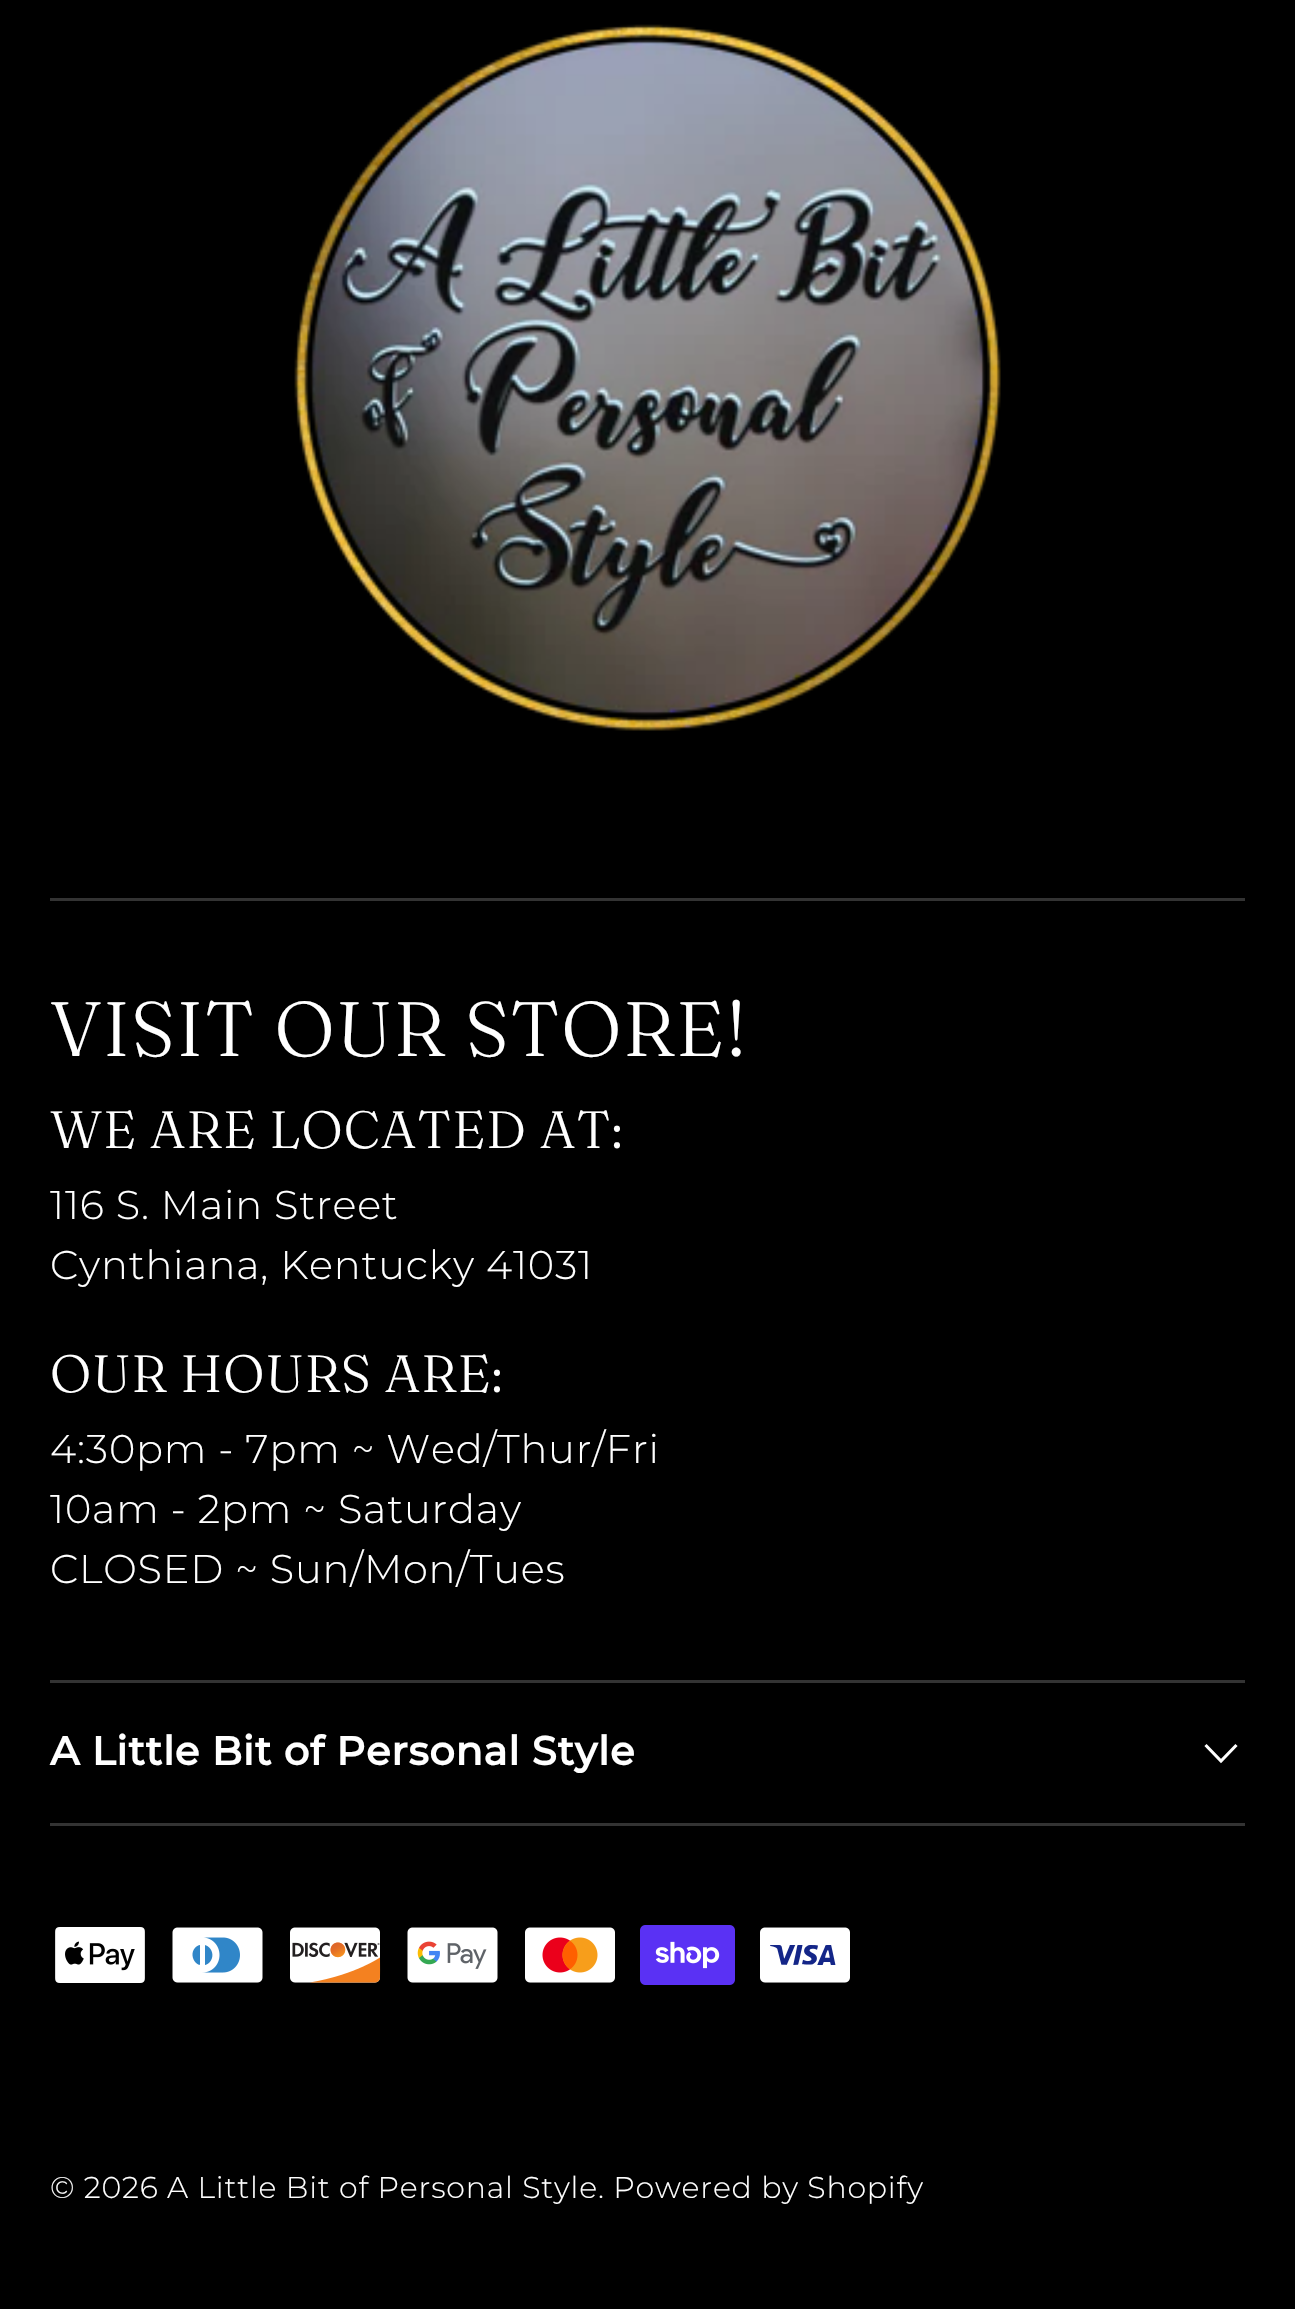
void draw(SkCanvas* canvas) {
    SkPaint paint;
    paint.setAntiAlias(true);
    auto face = [&](const char* family, int weight, float size, bool italic = false) {
        SkFontStyle style(weight, SkFontStyle::kNormal_Width,
            italic ? SkFontStyle::kItalic_Slant : SkFontStyle::kUpright_Slant);
        SkFont result(fontMgr->matchFamilyStyle(family, style), size);
        result.setSubpixel(true);
        return result;
    };
    auto writeSpaced = [&](const char* s, float x, float y, const SkFont& font, const SkPaint& ink, float letter, float word) {
        std::vector<SkGlyphID> glyphs(font.countText(s, strlen(s), SkTextEncoding::kUTF8));
        std::vector<float> xs(glyphs.size());
        font.textToGlyphs(s, strlen(s), SkTextEncoding::kUTF8, glyphs);
        font.getXPos(glyphs, xs, x);
        float extra = 0;
        for (size_t i = 0; i < glyphs.size(); i++) {
            xs[i] += extra;
            extra += letter + word * (glyphs[i] == font.unicharToGlyph(' '));
        }
        canvas->drawTextBlob(SkTextBlob::MakeFromPosHGlyphs(glyphs, xs, y, font), 0, 0, ink);
    };
    auto block = [&](float x, float y, float w, float h, SkColor color) {
        SkPaint ink(SkColor4f::FromColor(color));
        ink.setAntiAlias(true);
        canvas->drawRect(SkRect::MakeXYWH(x, y, w, h), ink);
    };
    auto paste = [&](const char* path, float x, float y, float w, float h) {
        auto image = SkImages::DeferredFromEncodedData(SkData::MakeFromFileName(path));
        canvas->drawImageRect(image, SkRect::MakeXYWH(x, y, w, h), SkSamplingOptions());
    };
    canvas->clear(SK_ColorBLACK);
    paste("pic1.png", 294, 24, 707, 707);
    block(50, 898, 1195, 3, SkColorSetRGB(51, 51, 51));
    auto kFont1 = face("Fraunces", 300, 76.75f);
    paint.setColor(SK_ColorWHITE);
    writeSpaced("VISIT OUR STORE!", 50, 1056, kFont1, paint, 1.5f, 0);
    auto kFont2 = face("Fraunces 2", 300, 52.25f);
    writeSpaced("WE ARE LOCATED AT:", 50, 1148, kFont2, paint, 1, 0);
    auto kFont3 = face("Montserrat", 300, 40);
    writeSpaced("116 S. Main Street", 50, 1219, kFont3, paint, 0.8f, 0);
    writeSpaced("Cynthiana, Kentucky 41031", 50, 1279, kFont3, paint, 0.8f, 0);
    writeSpaced("OUR HOURS ARE:", 50, 1392, kFont2, paint, 1, 0);
    writeSpaced("4:30pm - 7pm ~ Wed/Thur/Fri", 50, 1463, kFont3, paint, 0.8f, 0);
    writeSpaced("10am - 2pm ~ Saturday", 50, 1523, kFont3, paint, 0.8f, 0);
    writeSpaced("CLOSED ~ Sun/Mon/Tues", 50, 1583, kFont3, paint, 0.8f, 0);
    block(50, 1680, 1195, 3, SkColorSetRGB(51, 51, 51));
    block(50, 1823, 1195, 3, SkColorSetRGB(51, 51, 51));
    auto kFont4 = face("Montserrat", 700, 40);
    writeSpaced("A Little Bit of Personal Style", 50, 1765, kFont4, paint, 0.8f, 0);
    paint.setStyle(SkPaint::kStroke_Style);
    paint.setStrokeWidth(3.1f);
    canvas->drawPath(SkPathBuilder().moveTo(1236.5f, 1745).lineTo(1221, 1761).lineTo(1205.5f, 1745).detach(), paint);
    paste("pic2.png", 55, 1927, 90, 56);
    paste("pic3.png", 172, 1927, 91, 56);
    paste("pic4.png", 290, 1927, 91, 56);
    paste("pic5.png", 407, 1927, 91, 56);
    paste("pic6.png", 525, 1927, 90, 56);
    paste("pic7.png", 640, 1925, 95, 60);
    paste("pic8.png", 760, 1927, 90, 56);
    auto kFont5 = face("Montserrat", 300, 30);
    paint.setStyle(SkPaint::kFill_Style);
    writeSpaced("© 2026 A Little Bit of Personal Style. Powered by Shopify", 50, 2198, kFont5, paint, 0.8f, 0);
}
